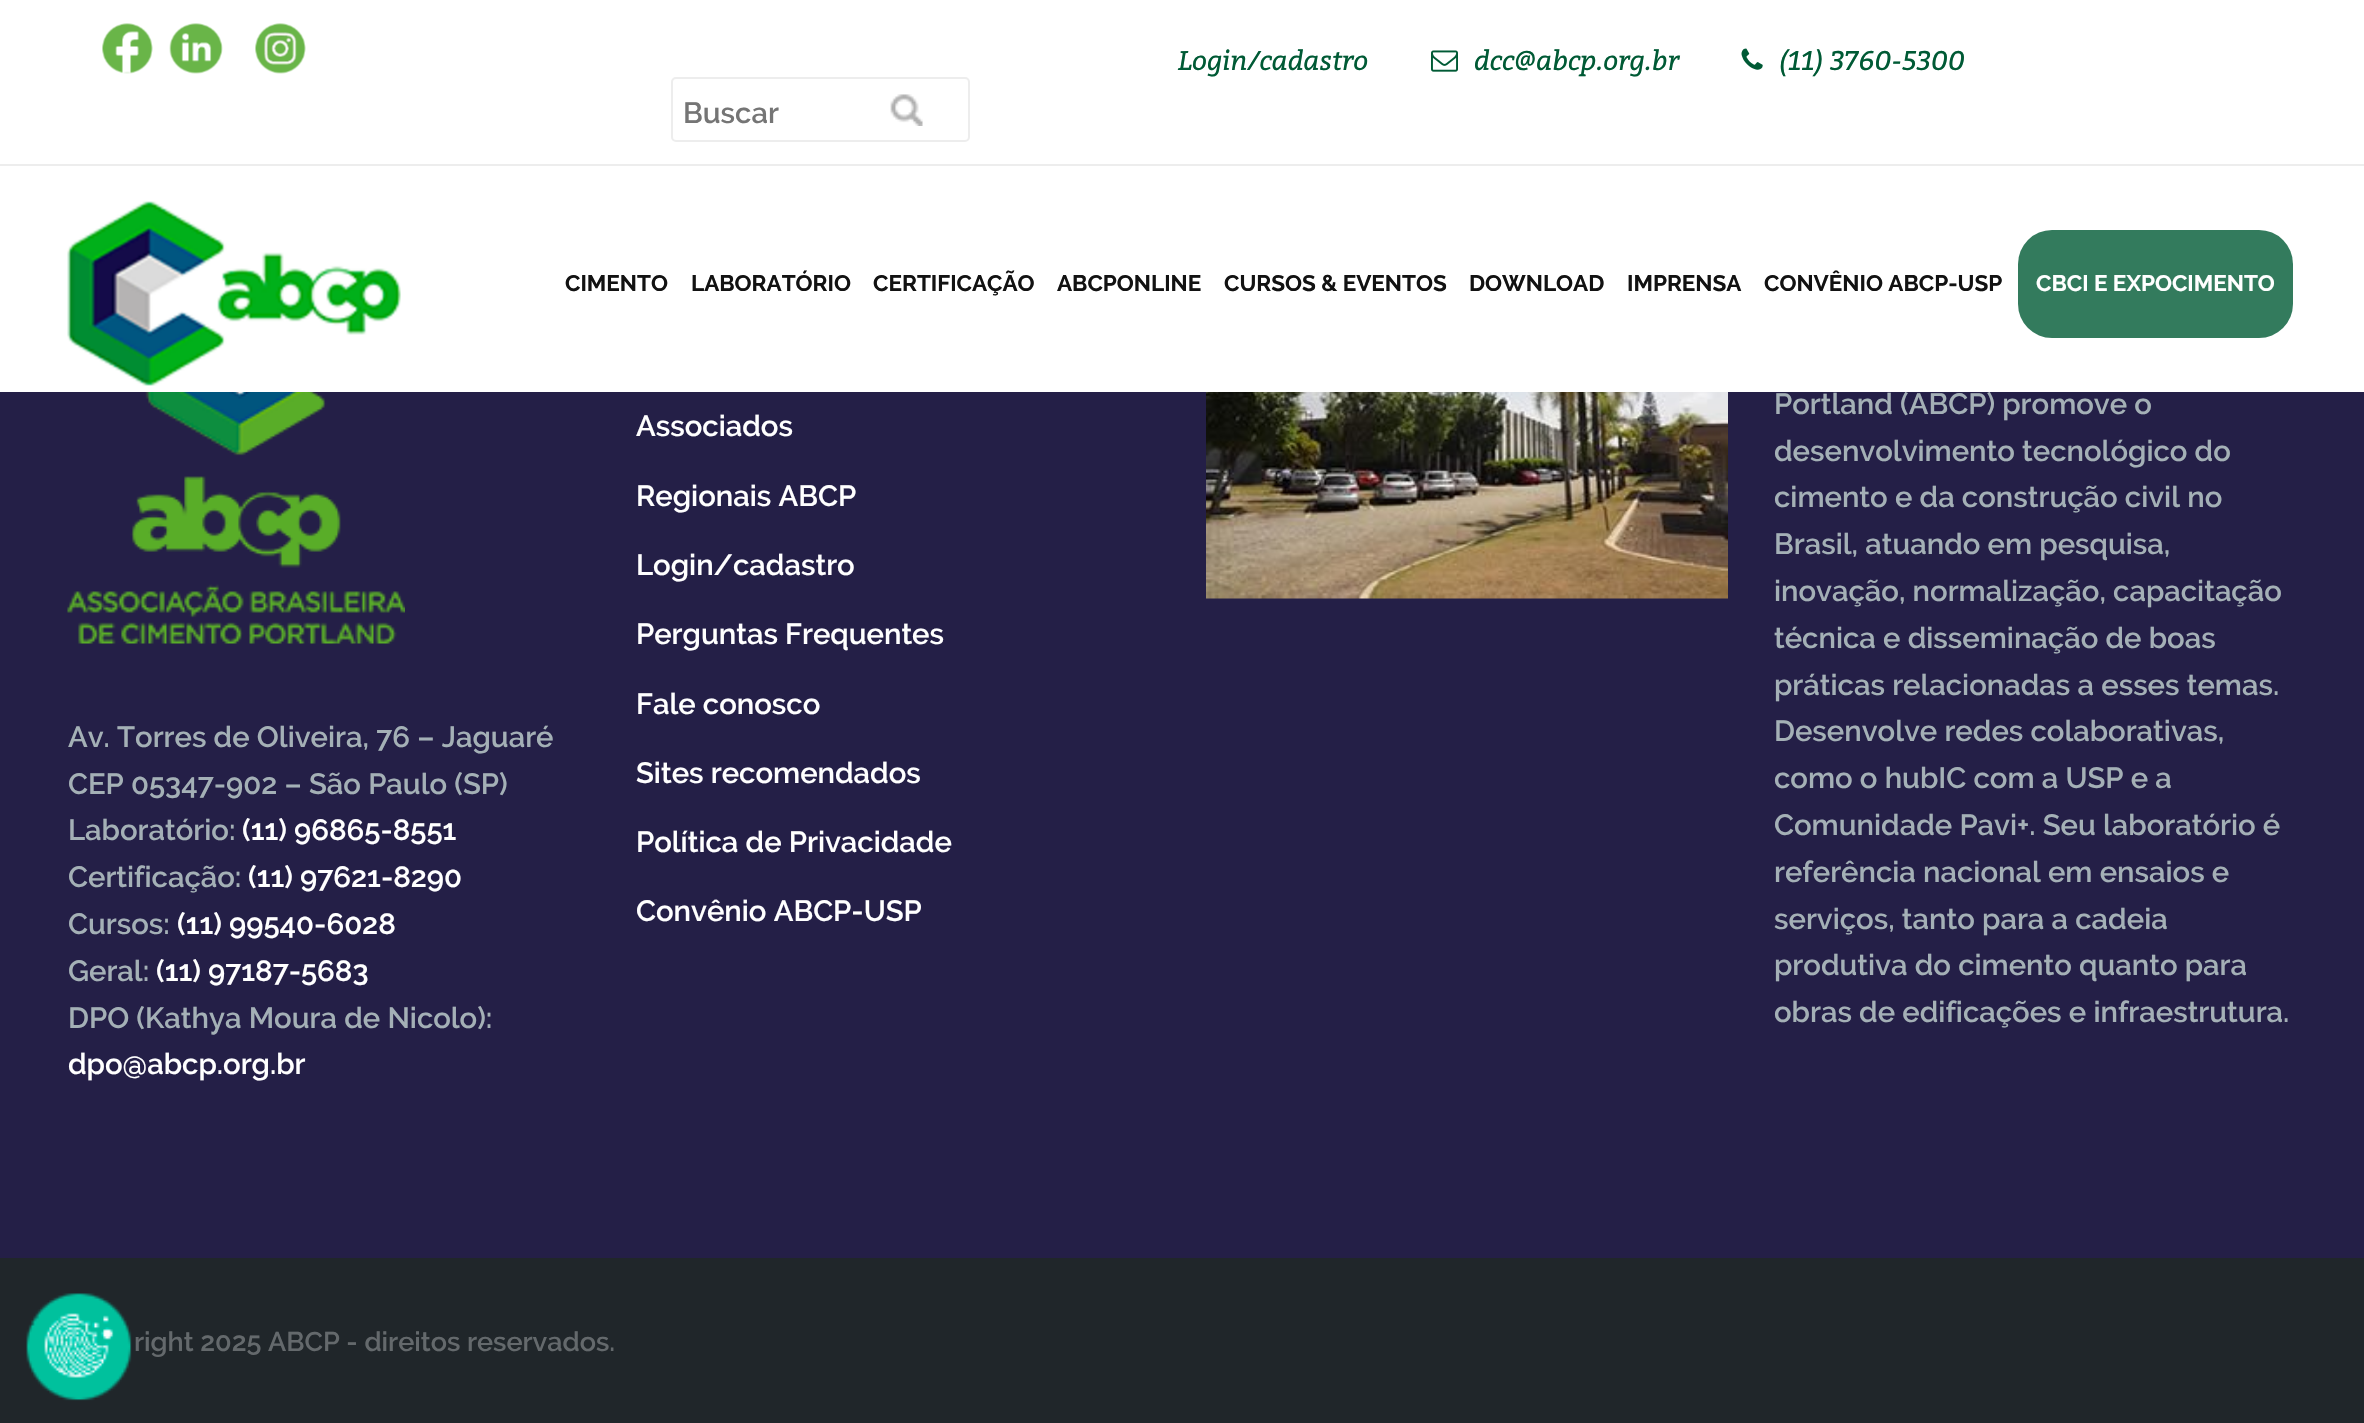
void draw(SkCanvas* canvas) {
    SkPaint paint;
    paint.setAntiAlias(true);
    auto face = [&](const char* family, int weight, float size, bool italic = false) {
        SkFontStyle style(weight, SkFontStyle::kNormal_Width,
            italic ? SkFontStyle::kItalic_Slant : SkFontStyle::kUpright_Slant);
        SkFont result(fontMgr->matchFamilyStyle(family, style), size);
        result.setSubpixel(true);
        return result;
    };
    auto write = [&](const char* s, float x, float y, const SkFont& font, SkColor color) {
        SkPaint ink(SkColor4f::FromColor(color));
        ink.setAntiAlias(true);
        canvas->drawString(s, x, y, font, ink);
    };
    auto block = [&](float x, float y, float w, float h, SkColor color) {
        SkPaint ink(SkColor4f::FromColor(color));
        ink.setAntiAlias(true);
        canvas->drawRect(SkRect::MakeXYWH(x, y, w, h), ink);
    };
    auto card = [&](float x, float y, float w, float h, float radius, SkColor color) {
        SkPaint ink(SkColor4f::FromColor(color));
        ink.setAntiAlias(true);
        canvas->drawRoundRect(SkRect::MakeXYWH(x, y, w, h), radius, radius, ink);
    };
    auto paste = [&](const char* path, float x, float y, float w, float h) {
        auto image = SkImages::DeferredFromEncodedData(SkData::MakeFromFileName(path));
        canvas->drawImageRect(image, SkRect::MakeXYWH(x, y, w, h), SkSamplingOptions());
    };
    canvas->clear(SkColorSetRGB(36, 31, 71));
    block(0, 0, 2364, 392, SK_ColorWHITE);
    block(0, 164, 2364, 2, SkColorSetRGB(237, 237, 237));
    paste("pic1.png", 102, 23, 51, 51);
    paste("pic2.png", 169, 23, 54, 51);
    paste("pic3.png", 255, 23, 51, 51);
    auto kFont1 = face("Bitter", 400, 27, true);
    write("Login/cadastro", 1178, 70, kFont1, SkColorSetRGB(0, 90, 53));
    paste("pic4.png", 1431, 50, 27, 22);
    write("dcc@abcp.org.br", 1474, 70, kFont1, SkColorSetRGB(0, 90, 53));
    paste("pic5.png", 1741, 48, 22, 22);
    write("(11) 3760-5300", 1779, 70, kFont1, SkColorSetRGB(0, 90, 53));
    paint.setStyle(SkPaint::kStroke_Style);
    paint.setStrokeWidth(2);
    paint.setColor(SkColorSetRGB(237, 237, 237));
    canvas->drawRoundRect(SkRect::MakeXYWH(672, 78, 297, 63), 4, 4, paint);
    auto kFont2 = face("Raleway", 600, 29.25f);
    write("Buscar", 683, 123, kFont2, SkColorSetRGB(117, 117, 117));
    paste("pic6.png", 890, 94, 33, 32);
    paste("pic7.png", 67, 201, 334, 185);
    auto kFont3 = face("Raleway", 700, 22.5f);
    write("CIMENTO", 565, 291, kFont3, SkColorSetRGB(18, 18, 18));
    write("LABORATÓRIO", 691, 291, kFont3, SkColorSetRGB(18, 18, 18));
    write("CERTIFICAÇÃO", 873, 291, kFont3, SkColorSetRGB(18, 18, 18));
    write("ABCPONLINE", 1057, 291, kFont3, SkColorSetRGB(18, 18, 18));
    write("CURSOS & EVENTOS", 1224, 291, kFont3, SkColorSetRGB(18, 18, 18));
    write("DOWNLOAD", 1469, 291, kFont3, SkColorSetRGB(18, 18, 18));
    write("IMPRENSA", 1627, 291, kFont3, SkColorSetRGB(18, 18, 18));
    write("CONVÊNIO ABCP-USP", 1764, 291, kFont3, SkColorSetRGB(18, 18, 18));
    card(2018, 230, 275, 108, 34, SkColorSetRGB(51, 123, 93));
    write("CBCI E EXPOCIMENTO", 2036, 291, kFont3, SK_ColorWHITE);
    paste("pic8.png", 67, 392, 338, 252);
    write("Av. Torres de Oliveira, 76 – Jaguaré", 68, 747, kFont2, SkColorSetRGB(164, 176, 182));
    write("CEP 05347-902 – São Paulo (SP)", 68, 794, kFont2, SkColorSetRGB(164, 176, 182));
    write("Laboratório:", 68, 840, kFont2, SkColorSetRGB(164, 176, 182));
    write("(11) 96865-8551", 242, 840, kFont2, SK_ColorWHITE);
    write("Certificação:", 68, 887, kFont2, SkColorSetRGB(164, 176, 182));
    write("(11) 97621-8290", 248, 887, kFont2, SK_ColorWHITE);
    write("Cursos:", 68, 934, kFont2, SkColorSetRGB(164, 176, 182));
    write("(11) 99540-6028", 177, 934, kFont2, SK_ColorWHITE);
    write("Geral:", 68, 981, kFont2, SkColorSetRGB(164, 176, 182));
    write("(11) 97187-5683", 156, 981, kFont2, SK_ColorWHITE);
    write("DPO (Kathya Moura de Nicolo):", 68, 1028, kFont2, SkColorSetRGB(164, 176, 182));
    write("dpo@abcp.org.br", 68, 1074, kFont2, SK_ColorWHITE);
    write("Associados", 636, 436, kFont2, SK_ColorWHITE);
    write("Regionais ABCP", 636, 506, kFont2, SK_ColorWHITE);
    write("Login/cadastro", 636, 575, kFont2, SK_ColorWHITE);
    write("Perguntas Frequentes", 636, 644, kFont2, SK_ColorWHITE);
    write("Fale conosco", 636, 714, kFont2, SK_ColorWHITE);
    write("Sites recomendados", 636, 783, kFont2, SK_ColorWHITE);
    write("Política de Privacidade", 636, 852, kFont2, SK_ColorWHITE);
    write("Convênio ABCP-USP", 636, 921, kFont2, SK_ColorWHITE);
    paste("pic9.png", 1206, 392, 522, 207);
    write("Portland (ABCP) promove o", 1774, 414, kFont2, SkColorSetRGB(164, 176, 182));
    write("desenvolvimento tecnológico do", 1774, 461, kFont2, SkColorSetRGB(164, 176, 182));
    write("cimento e da construção civil no", 1774, 507, kFont2, SkColorSetRGB(164, 176, 182));
    write("Brasil, atuando em pesquisa,", 1774, 554, kFont2, SkColorSetRGB(164, 176, 182));
    write("inovação, normalização, capacitação", 1774, 601, kFont2, SkColorSetRGB(164, 176, 182));
    write("técnica e disseminação de boas", 1774, 648, kFont2, SkColorSetRGB(164, 176, 182));
    write("práticas relacionadas a esses temas.", 1774, 695, kFont2, SkColorSetRGB(164, 176, 182));
    write("Desenvolve redes colaborativas,", 1774, 741, kFont2, SkColorSetRGB(164, 176, 182));
    write("como o hubIC com a USP e a", 1774, 788, kFont2, SkColorSetRGB(164, 176, 182));
    write("Comunidade Pavi+. Seu laboratório é", 1774, 835, kFont2, SkColorSetRGB(164, 176, 182));
    write("referência nacional em ensaios e", 1774, 882, kFont2, SkColorSetRGB(164, 176, 182));
    write("serviços, tanto para a cadeia", 1774, 929, kFont2, SkColorSetRGB(164, 176, 182));
    write("produtiva do cimento quanto para", 1774, 975, kFont2, SkColorSetRGB(164, 176, 182));
    write("obras de edificações e infraestrutura.", 1774, 1022, kFont2, SkColorSetRGB(164, 176, 182));
    block(0, 1258, 2364, 165, SkColorSetRGB(32, 38, 42));
    auto kFont4 = face("Raleway", 600, 27);
    write("right 2025 ABCP - direitos reservados.", 134, 1351, kFont4, SkColorSetRGB(100, 105, 108));
    paste("pic10.png", 26, 1293, 106, 108);
}
